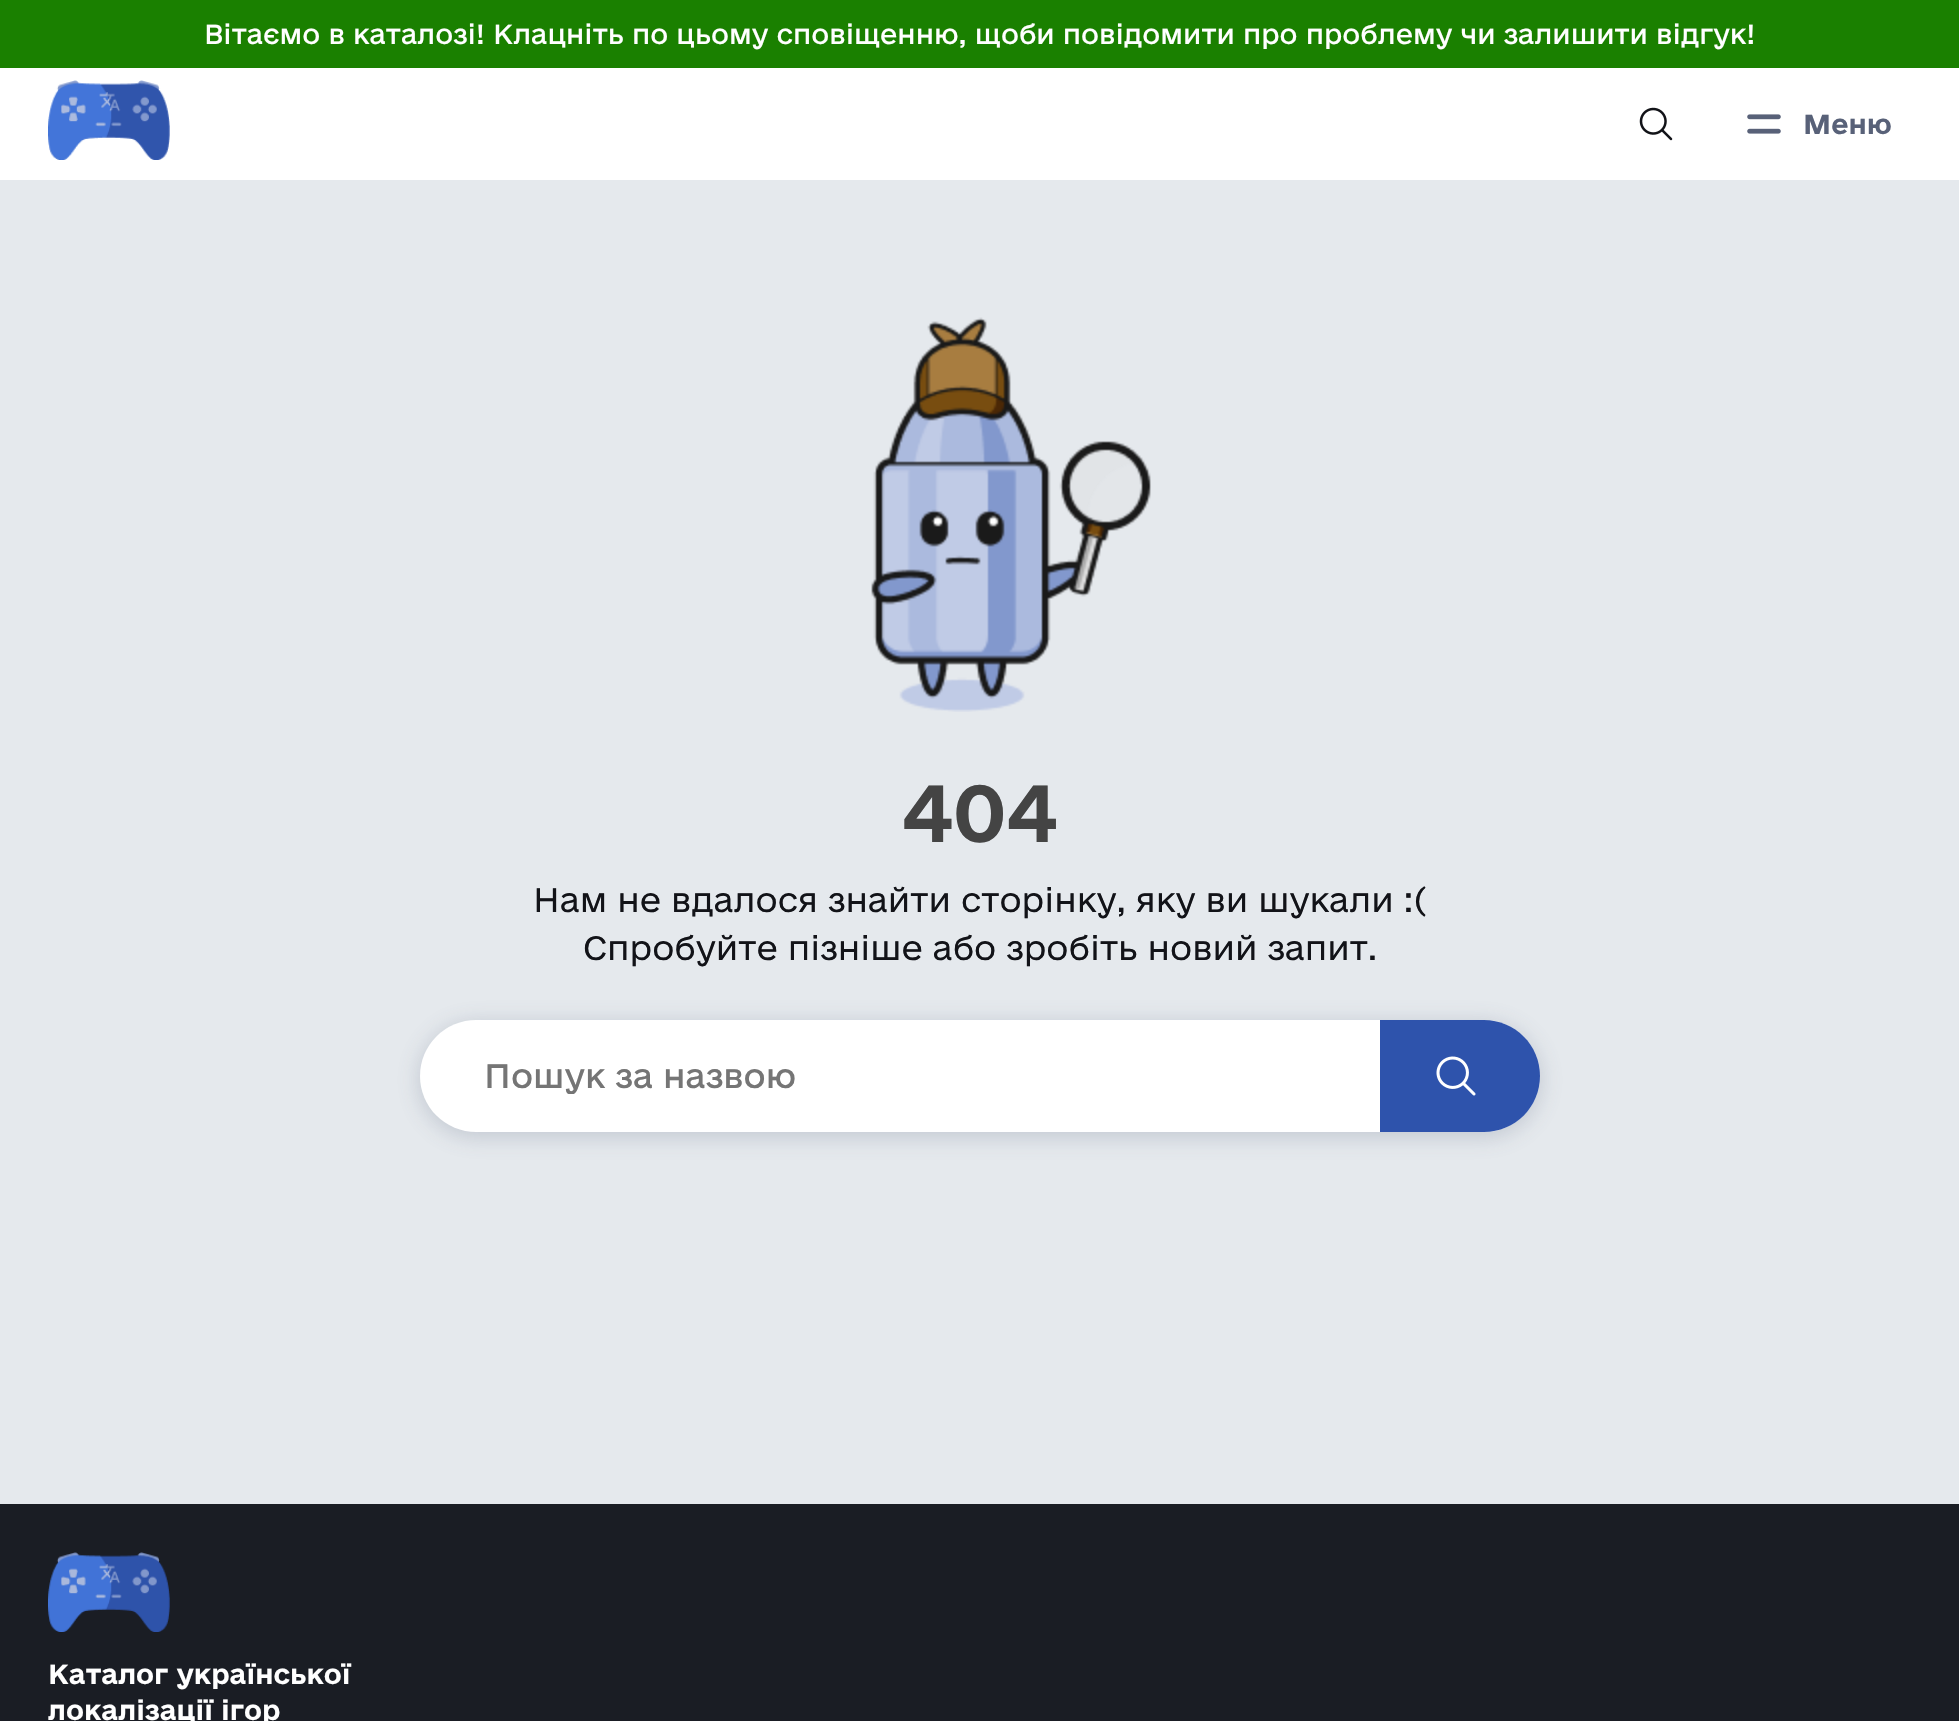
void draw(SkCanvas* canvas) {
    SkPaint paint;
    paint.setAntiAlias(true);
    auto face = [&](const char* family, int weight, float size, bool italic = false) {
        SkFontStyle style(weight, SkFontStyle::kNormal_Width,
            italic ? SkFontStyle::kItalic_Slant : SkFontStyle::kUpright_Slant);
        SkFont result(fontMgr->matchFamilyStyle(family, style), size);
        result.setSubpixel(true);
        return result;
    };
    auto write = [&](const char* s, float x, float y, const SkFont& font, SkColor color) {
        SkPaint ink(SkColor4f::FromColor(color));
        ink.setAntiAlias(true);
        canvas->drawString(s, x, y, font, ink);
    };
    auto block = [&](float x, float y, float w, float h, SkColor color) {
        SkPaint ink(SkColor4f::FromColor(color));
        ink.setAntiAlias(true);
        canvas->drawRect(SkRect::MakeXYWH(x, y, w, h), ink);
    };
    auto card = [&](float x, float y, float w, float h, float radius, SkColor color) {
        SkPaint ink(SkColor4f::FromColor(color));
        ink.setAntiAlias(true);
        canvas->drawRoundRect(SkRect::MakeXYWH(x, y, w, h), radius, radius, ink);
    };
    auto paste = [&](const char* path, float x, float y, float w, float h) {
        auto image = SkImages::DeferredFromEncodedData(SkData::MakeFromFileName(path));
        canvas->drawImageRect(image, SkRect::MakeXYWH(x, y, w, h), SkSamplingOptions());
    };
    canvas->clear(SkColorSetRGB(229, 233, 237));
    block(0, 0, 1959, 68, SkColorSetRGB(26, 128, 0));
    auto kFont1 = face("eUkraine", 400, 26);
    write("Вітаємо в каталозі! Клацніть по цьому сповіщенню, щоби повідомити про проблему чи залишити відгук!", 204, 44, kFont1, SK_ColorWHITE);
    block(0, 68, 1959, 112, SK_ColorWHITE);
    paste("pic1.png", 48, 80, 122, 80);
    paste("pic2.png", 1639, 107, 34, 34);
    paste("pic3.png", 1747, 114, 34, 20);
    auto kFont2 = face("eUkraine", 700, 26);
    write("Меню", 1803, 134, kFont2, SkColorSetRGB(88, 97, 120));
    paste("pic4.png", 871, 317, 280, 395);
    auto kFont3 = face("eUkraine", 700, 76);
    write("404", 902, 842, kFont3, SkColorSetRGB(68, 68, 68));
    auto kFont4 = face("eUkraine", 300, 32);
    write("Нам не вдалося знайти сторінку, яку ви шукали :(", 533, 912, kFont4, SkColorSetRGB(18, 19, 24));
    write("Спробуйте пізніше або зробіть новий запит.", 583, 960, kFont4, SkColorSetRGB(18, 19, 24));
    paint.setColor(SkColorSetARGB(64, 77, 87, 116));
    paint.setMaskFilter(SkMaskFilter::MakeBlur(kNormal_SkBlurStyle, 12));
    canvas->drawRoundRect(SkRect::MakeXYWH(420, 1024, 1120, 112), 56, 56, paint);
    paint.setMaskFilter(nullptr);
    card(420, 1020, 1120, 112, 56, SK_ColorWHITE);
    canvas->save();
    canvas->clipRect(SkRect::MakeXYWH(484, 1056, 896, 38));
    auto kFont5 = face("eUkraine", 400, 32);
    write("Пошук за назвою", 484, 1088, kFont5, SkColorSetRGB(117, 117, 117));
    canvas->restore();
    paint.setColor(SkColorSetRGB(46, 83, 172));
    canvas->drawPath(SkPathBuilder().moveTo(1380, 1020).lineTo(1484, 1020).cubicTo(1515, 1020, 1540, 1045, 1540, 1076).cubicTo(1540, 1107, 1515, 1132, 1484, 1132).lineTo(1380, 1132).close().detach(), paint);
    paste("pic5.png", 1436, 1056, 40, 40);
    block(0, 1504, 1959, 217, SkColorSetRGB(26, 29, 36));
    paste("pic6.png", 48, 1552, 122, 80);
    write("Каталог української", 48, 1684, kFont2, SK_ColorWHITE);
    write("локалізації ігор", 48, 1720, kFont2, SK_ColorWHITE);
}
